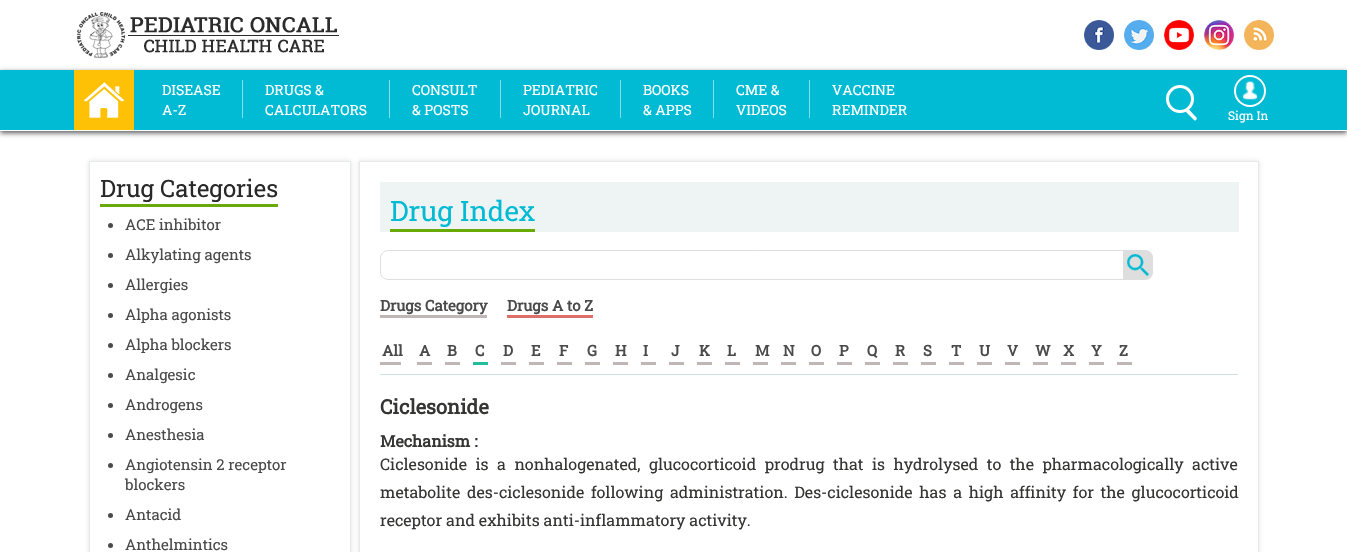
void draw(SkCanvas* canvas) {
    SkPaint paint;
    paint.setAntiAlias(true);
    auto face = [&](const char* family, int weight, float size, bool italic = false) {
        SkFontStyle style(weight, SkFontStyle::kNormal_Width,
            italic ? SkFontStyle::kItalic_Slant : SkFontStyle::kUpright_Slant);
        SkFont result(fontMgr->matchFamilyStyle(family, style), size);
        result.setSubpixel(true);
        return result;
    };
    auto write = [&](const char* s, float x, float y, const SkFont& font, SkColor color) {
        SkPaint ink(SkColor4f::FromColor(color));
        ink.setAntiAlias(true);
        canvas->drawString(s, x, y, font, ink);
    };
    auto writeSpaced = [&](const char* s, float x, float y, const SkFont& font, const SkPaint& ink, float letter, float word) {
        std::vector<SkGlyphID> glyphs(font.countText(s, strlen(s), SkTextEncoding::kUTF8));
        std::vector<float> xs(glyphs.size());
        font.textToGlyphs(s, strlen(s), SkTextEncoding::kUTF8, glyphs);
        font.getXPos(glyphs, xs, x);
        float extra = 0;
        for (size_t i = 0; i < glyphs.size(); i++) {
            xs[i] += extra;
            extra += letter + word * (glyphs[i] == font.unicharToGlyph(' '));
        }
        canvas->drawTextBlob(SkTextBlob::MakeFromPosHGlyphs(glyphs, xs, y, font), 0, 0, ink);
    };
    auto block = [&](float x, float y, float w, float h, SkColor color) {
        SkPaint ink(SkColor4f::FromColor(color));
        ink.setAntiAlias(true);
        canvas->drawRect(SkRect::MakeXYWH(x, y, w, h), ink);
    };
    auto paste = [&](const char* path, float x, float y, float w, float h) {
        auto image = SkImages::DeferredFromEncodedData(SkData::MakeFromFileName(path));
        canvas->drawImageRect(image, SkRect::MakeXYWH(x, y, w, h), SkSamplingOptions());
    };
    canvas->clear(SK_ColorWHITE);
    paste("pic1.png", 77, 12, 262, 46);
    paste("pic2.png", 1084, 20, 30, 30);
    paste("pic3.png", 1124, 20, 30, 30);
    paste("pic4.png", 1164, 20, 30, 30);
    paste("pic5.png", 1204, 20, 30, 30);
    paste("pic6.png", 1244, 20, 30, 30);
    paint.setColor(SkColorSetARGB(166, 0, 0, 0));
    paint.setMaskFilter(SkMaskFilter::MakeBlur(kNormal_SkBlurStyle, 2.5f));
    canvas->drawRect(SkRect::MakeXYWH(0, 72, 1347, 61), paint);
    paint.setMaskFilter(nullptr);
    block(0, 70, 1347, 60, SkColorSetRGB(1, 186, 211));
    block(0, 130, 1347, 1, SK_ColorWHITE);
    block(74, 70, 60, 60, SkColorSetRGB(254, 193, 6));
    paste("pic7.png", 84, 82, 40, 36);
    auto kFont1 = face("Roboto Slab", 400, 14);
    write("DISEASE", 162, 95, kFont1, SK_ColorWHITE);
    write("A-Z", 162, 115, kFont1, SK_ColorWHITE);
    block(242, 80, 1, 38, SkColorSetRGB(128, 221, 233));
    write("DRUGS &", 265, 95, kFont1, SK_ColorWHITE);
    write("CALCULATORS", 265, 115, kFont1, SK_ColorWHITE);
    block(389, 80, 1, 38, SkColorSetRGB(128, 221, 233));
    write("CONSULT", 412, 95, kFont1, SK_ColorWHITE);
    write("& POSTS", 412, 115, kFont1, SK_ColorWHITE);
    block(500, 80, 1, 38, SkColorSetRGB(128, 221, 233));
    write("PEDIATRIC", 523, 95, kFont1, SK_ColorWHITE);
    write("JOURNAL", 523, 115, kFont1, SK_ColorWHITE);
    block(620, 80, 1, 38, SkColorSetRGB(128, 221, 233));
    write("BOOKS", 643, 95, kFont1, SK_ColorWHITE);
    write("& APPS", 643, 115, kFont1, SK_ColorWHITE);
    block(713, 80, 1, 38, SkColorSetRGB(128, 221, 233));
    write("CME &", 736, 95, kFont1, SK_ColorWHITE);
    write("VIDEOS", 736, 115, kFont1, SK_ColorWHITE);
    block(809, 80, 1, 38, SkColorSetRGB(128, 221, 233));
    write("VACCINE", 832, 95, kFont1, SK_ColorWHITE);
    write("REMINDER", 832, 115, kFont1, SK_ColorWHITE);
    paint.setStyle(SkPaint::kStroke_Style);
    paint.setStrokeWidth(3);
    paint.setColor(SK_ColorWHITE);
    canvas->drawCircle(1180, 99, 12.5f, paint);
    paint.setStyle(SkPaint::kFill_Style);
    canvas->drawPath(SkPathBuilder().moveTo(1189.5f, 110).lineTo(1194, 115).cubicTo(1195, 116, 1198.5f, 118.5f, 1196, 120).cubicTo(1195.5f, 120.5f, 1195, 120.5f, 1194.5f, 120.5f).lineTo(1186, 112).cubicTo(1185.5f, 110, 1188, 108.5f, 1189.5f, 110).close().detach(), paint);
    paint.setStyle(SkPaint::kStroke_Style);
    paint.setStrokeWidth(2);
    canvas->drawCircle(1250, 91, 15, paint);
    paste("pic8.png", 1239, 81, 22, 20);
    auto kFont2 = face("Roboto Slab", 400, 12);
    write("Sign In", 1228, 120, kFont2, SK_ColorWHITE);
    canvas->save();
    canvas->clipPath(SkPathBuilder(SkPathFillType::kEvenOdd).moveTo(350, 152).lineTo(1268, 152).lineTo(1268, 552).lineTo(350, 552).close().moveTo(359, 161).lineTo(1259, 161).lineTo(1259, 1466).lineTo(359, 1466).close().detach(), true);
    paint.setStyle(SkPaint::kFill_Style);
    paint.setColor(SkColorSetARGB(77, 163, 157, 163));
    paint.setMaskFilter(SkMaskFilter::MakeBlur(kNormal_SkBlurStyle, 2.5f));
    canvas->drawRect(SkRect::MakeXYWH(359, 161, 900, 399), paint);
    paint.setMaskFilter(nullptr);
    canvas->restore();
    paint.setStyle(SkPaint::kStroke_Style);
    paint.setStrokeWidth(1);
    paint.setColor(SkColorSetRGB(230, 233, 233));
    canvas->drawRect(SkRect::MakeXYWH(359.5f, 161.5f, 899, 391), paint);
    canvas->save();
    canvas->clipPath(SkPathBuilder(SkPathFillType::kEvenOdd).moveTo(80, 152).lineTo(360, 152).lineTo(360, 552).lineTo(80, 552).close().moveTo(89, 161).lineTo(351, 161).lineTo(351, 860).lineTo(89, 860).close().detach(), true);
    paint.setStyle(SkPaint::kFill_Style);
    paint.setColor(SkColorSetARGB(77, 163, 157, 163));
    paint.setMaskFilter(SkMaskFilter::MakeBlur(kNormal_SkBlurStyle, 2.5f));
    canvas->drawRect(SkRect::MakeXYWH(89, 161, 262, 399), paint);
    paint.setMaskFilter(nullptr);
    canvas->restore();
    paint.setStyle(SkPaint::kStroke_Style);
    paint.setColor(SkColorSetRGB(230, 233, 233));
    canvas->drawRect(SkRect::MakeXYWH(89.5f, 161.5f, 261, 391), paint);
    auto kFont3 = face("Roboto Slab", 400, 24);
    write("Drug Categories", 100, 197, kFont3, SkColorSetRGB(41, 40, 40));
    block(100, 204, 178, 3, SkColorSetRGB(105, 169, 8));
    paint.setStyle(SkPaint::kFill_Style);
    paint.setColor(SkColorSetRGB(74, 74, 74));
    canvas->drawCircle(110.5f, 225.5f, 2.5f, paint);
    auto kFont4 = face("Roboto Slab", 400, 15);
    write("ACE inhibitor", 125, 230, kFont4, SkColorSetRGB(74, 74, 74));
    canvas->drawCircle(110.5f, 255.5f, 2.5f, paint);
    write("Alkylating agents", 125, 260, kFont4, SkColorSetRGB(74, 74, 74));
    canvas->drawCircle(110.5f, 285.5f, 2.5f, paint);
    write("Allergies", 125, 290, kFont4, SkColorSetRGB(74, 74, 74));
    canvas->drawCircle(110.5f, 315.5f, 2.5f, paint);
    write("Alpha agonists", 125, 320, kFont4, SkColorSetRGB(74, 74, 74));
    canvas->drawCircle(110.5f, 345.5f, 2.5f, paint);
    write("Alpha blockers", 125, 350, kFont4, SkColorSetRGB(74, 74, 74));
    canvas->drawCircle(110.5f, 375.5f, 2.5f, paint);
    write("Analgesic", 125, 380, kFont4, SkColorSetRGB(74, 74, 74));
    canvas->drawCircle(110.5f, 405.5f, 2.5f, paint);
    write("Androgens", 125, 410, kFont4, SkColorSetRGB(74, 74, 74));
    canvas->drawCircle(110.5f, 435.5f, 2.5f, paint);
    write("Anesthesia", 125, 440, kFont4, SkColorSetRGB(74, 74, 74));
    canvas->drawCircle(110.5f, 465.5f, 2.5f, paint);
    write("Angiotensin 2 receptor", 125, 470, kFont4, SkColorSetRGB(74, 74, 74));
    write("blockers", 125, 490, kFont4, SkColorSetRGB(74, 74, 74));
    canvas->drawCircle(110.5f, 515.5f, 2.5f, paint);
    write("Antacid", 125, 520, kFont4, SkColorSetRGB(74, 74, 74));
    canvas->drawCircle(110.5f, 545.5f, 2.5f, paint);
    write("Anthelmintics", 125, 550, kFont4, SkColorSetRGB(74, 74, 74));
    block(380, 182, 859, 50, SkColorSetRGB(238, 244, 244));
    auto kFont5 = face("Roboto Slab", 400, 28);
    write("Drug Index", 390, 221, kFont5, SkColorSetRGB(1, 186, 211));
    block(390, 229, 145, 3, SkColorSetRGB(105, 169, 8));
    paint.setStyle(SkPaint::kStroke_Style);
    paint.setColor(SkColorSetRGB(222, 222, 222));
    canvas->drawPath(SkPathBuilder().moveTo(388, 250.5f).lineTo(1128.5f, 250.5f).lineTo(1128.5f, 279.5f).lineTo(388, 279.5f).cubicTo(384, 279.5f, 380.5f, 276, 380.5f, 272).lineTo(380.5f, 258).cubicTo(380.5f, 254, 384, 250.5f, 388, 250.5f).close().detach(), paint);
    paint.setStyle(SkPaint::kFill_Style);
    canvas->drawPath(SkPathBuilder().moveTo(1123, 250).lineTo(1145, 250).cubicTo(1149.5f, 250, 1153, 253.5f, 1153, 258).lineTo(1153, 272).cubicTo(1153, 276.5f, 1149.5f, 280, 1145, 280).lineTo(1123, 280).close().detach(), paint);
    paste("pic9.png", 1127, 254, 22, 22);
    auto kFont6 = face("Roboto Slab", 700, 15);
    write("Drugs Category", 380, 311, kFont6, SkColorSetRGB(74, 74, 74));
    block(380, 315, 107, 3, SkColorSetRGB(191, 182, 182));
    write("Drugs A to Z", 507, 311, kFont6, SkColorSetRGB(74, 74, 74));
    block(507, 315, 86, 3, SkColorSetRGB(223, 111, 107));
    write("All", 382, 356, kFont6, SkColorSetRGB(74, 74, 74));
    block(380, 362, 21, 3, SkColorSetRGB(191, 182, 182));
    write("A", 419, 356, kFont6, SkColorSetRGB(74, 74, 74));
    block(417, 362, 15, 3, SkColorSetRGB(191, 182, 182));
    write("B", 447, 356, kFont6, SkColorSetRGB(74, 74, 74));
    block(445, 362, 15, 3, SkColorSetRGB(191, 182, 182));
    write("C", 475, 356, kFont6, SkColorSetRGB(74, 74, 74));
    block(473, 362, 15, 3, SkColorSetRGB(32, 190, 157));
    write("D", 503, 356, kFont6, SkColorSetRGB(74, 74, 74));
    block(501, 362, 15, 3, SkColorSetRGB(191, 182, 182));
    write("E", 531, 356, kFont6, SkColorSetRGB(74, 74, 74));
    block(529, 362, 15, 3, SkColorSetRGB(191, 182, 182));
    write("F", 559, 356, kFont6, SkColorSetRGB(74, 74, 74));
    block(557, 362, 15, 3, SkColorSetRGB(191, 182, 182));
    write("G", 587, 356, kFont6, SkColorSetRGB(74, 74, 74));
    block(585, 362, 15, 3, SkColorSetRGB(191, 182, 182));
    write("H", 615, 356, kFont6, SkColorSetRGB(74, 74, 74));
    block(613, 362, 15, 3, SkColorSetRGB(191, 182, 182));
    write("I", 643, 356, kFont6, SkColorSetRGB(74, 74, 74));
    block(641, 362, 15, 3, SkColorSetRGB(191, 182, 182));
    write("J", 671, 356, kFont6, SkColorSetRGB(74, 74, 74));
    block(669, 362, 15, 3, SkColorSetRGB(191, 182, 182));
    write("K", 699, 356, kFont6, SkColorSetRGB(74, 74, 74));
    block(697, 362, 15, 3, SkColorSetRGB(191, 182, 182));
    write("L", 727, 356, kFont6, SkColorSetRGB(74, 74, 74));
    block(725, 362, 15, 3, SkColorSetRGB(191, 182, 182));
    write("M", 755, 356, kFont6, SkColorSetRGB(74, 74, 74));
    block(753, 362, 15, 3, SkColorSetRGB(191, 182, 182));
    write("N", 783, 356, kFont6, SkColorSetRGB(74, 74, 74));
    block(781, 362, 15, 3, SkColorSetRGB(191, 182, 182));
    write("O", 811, 356, kFont6, SkColorSetRGB(74, 74, 74));
    block(809, 362, 15, 3, SkColorSetRGB(191, 182, 182));
    write("P", 839, 356, kFont6, SkColorSetRGB(74, 74, 74));
    block(837, 362, 15, 3, SkColorSetRGB(191, 182, 182));
    write("Q", 867, 356, kFont6, SkColorSetRGB(74, 74, 74));
    block(865, 362, 15, 3, SkColorSetRGB(191, 182, 182));
    write("R", 895, 356, kFont6, SkColorSetRGB(74, 74, 74));
    block(893, 362, 15, 3, SkColorSetRGB(191, 182, 182));
    write("S", 923, 356, kFont6, SkColorSetRGB(74, 74, 74));
    block(921, 362, 15, 3, SkColorSetRGB(191, 182, 182));
    write("T", 951, 356, kFont6, SkColorSetRGB(74, 74, 74));
    block(949, 362, 15, 3, SkColorSetRGB(191, 182, 182));
    write("U", 979, 356, kFont6, SkColorSetRGB(74, 74, 74));
    block(977, 362, 15, 3, SkColorSetRGB(191, 182, 182));
    write("V", 1007, 356, kFont6, SkColorSetRGB(74, 74, 74));
    block(1005, 362, 15, 3, SkColorSetRGB(191, 182, 182));
    write("W", 1035, 356, kFont6, SkColorSetRGB(74, 74, 74));
    block(1033, 362, 15, 3, SkColorSetRGB(191, 182, 182));
    write("X", 1063, 356, kFont6, SkColorSetRGB(74, 74, 74));
    block(1061, 362, 15, 3, SkColorSetRGB(191, 182, 182));
    write("Y", 1091, 356, kFont6, SkColorSetRGB(74, 74, 74));
    block(1089, 362, 15, 3, SkColorSetRGB(191, 182, 182));
    write("Z", 1119, 356, kFont6, SkColorSetRGB(74, 74, 74));
    block(1117, 362, 15, 3, SkColorSetRGB(191, 182, 182));
    block(380, 374, 858, 1, SkColorSetRGB(206, 224, 228));
    auto kFont7 = face("Roboto Slab", 700, 20);
    write("Ciclesonide", 380, 414, kFont7, SkColorSetRGB(53, 53, 52));
    auto kFont8 = face("Roboto Slab", 700, 16);
    write("Mechanism :", 380, 447, kFont8, SkColorSetRGB(53, 53, 52));
    auto kFont9 = face("Roboto Slab", 400, 16);
    paint.setColor(SkColorSetRGB(53, 53, 52));
    writeSpaced("Ciclesonide is a nonhalogenated, glucocorticoid prodrug that is hydrolysed to the pharmacologically active", 380, 470, kFont9, paint, 0, 4.5f);
    writeSpaced("metabolite des-ciclesonide following administration. Des-ciclesonide has a high affinity for the glucocorticoid", 380, 498, kFont9, paint, 0, 2.75f);
    write("receptor and exhibits anti-inflammatory activity.", 380, 526, kFont9, SkColorSetRGB(53, 53, 52));
}
